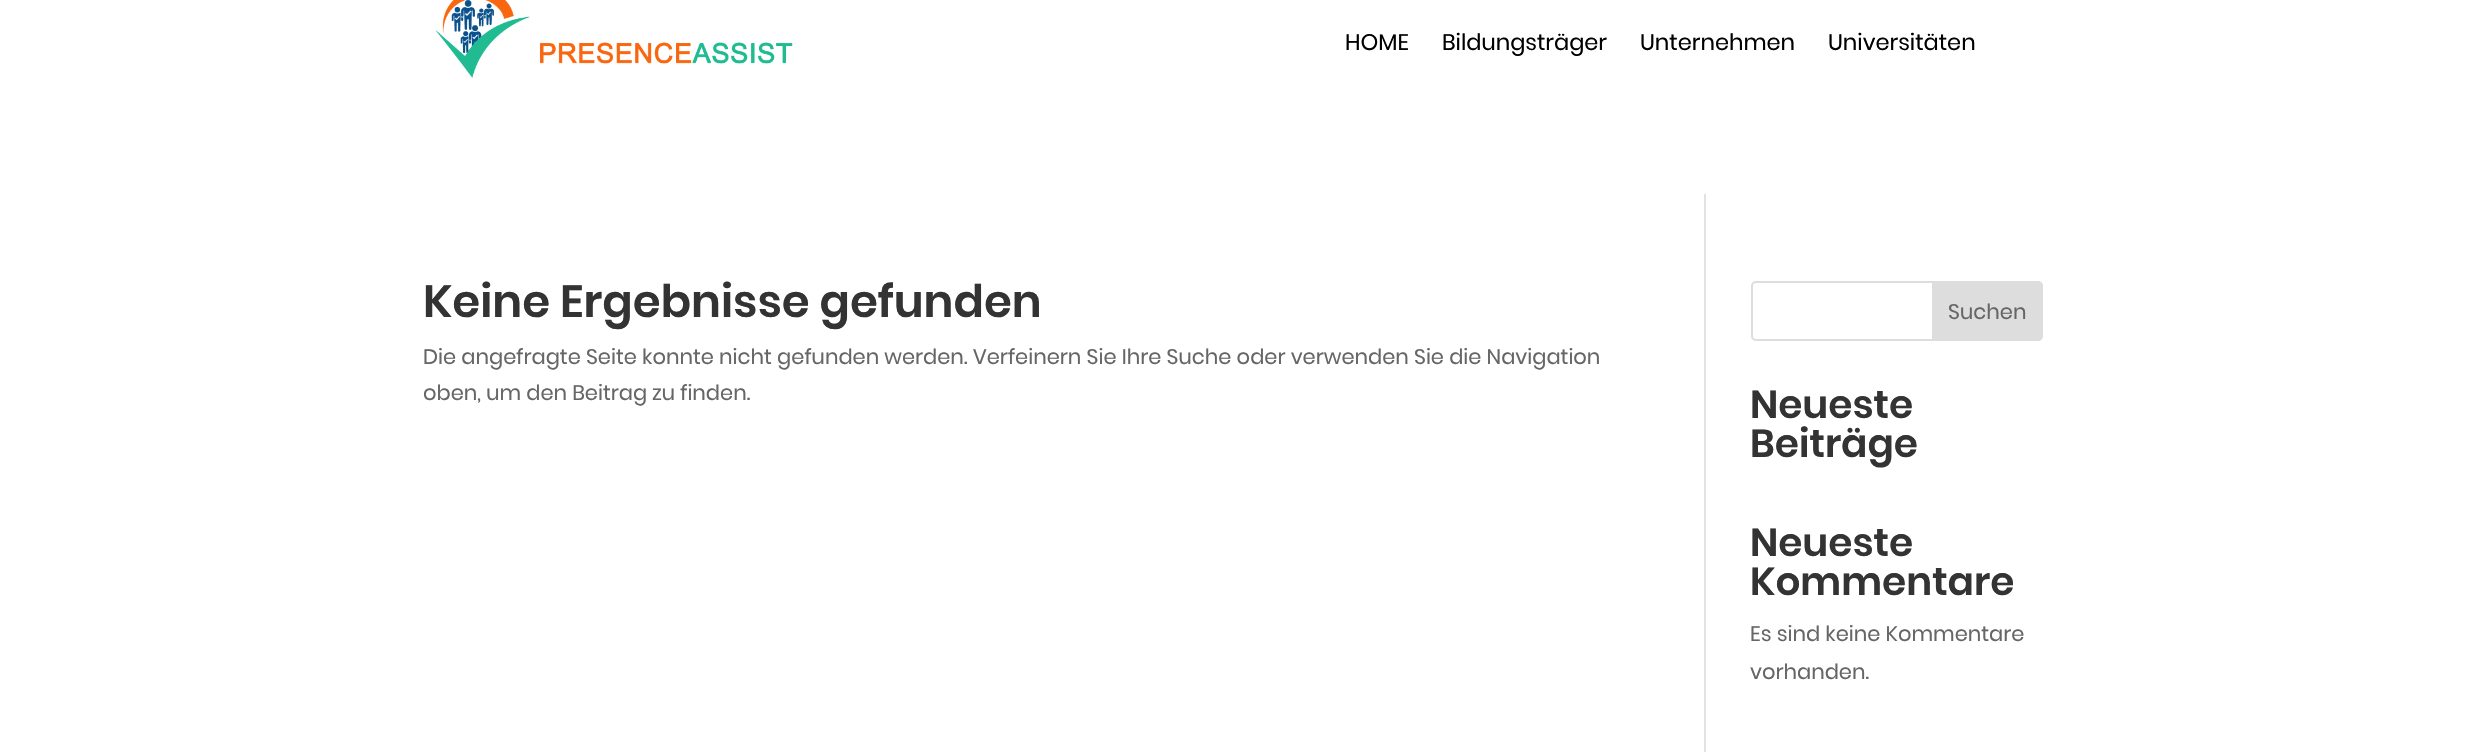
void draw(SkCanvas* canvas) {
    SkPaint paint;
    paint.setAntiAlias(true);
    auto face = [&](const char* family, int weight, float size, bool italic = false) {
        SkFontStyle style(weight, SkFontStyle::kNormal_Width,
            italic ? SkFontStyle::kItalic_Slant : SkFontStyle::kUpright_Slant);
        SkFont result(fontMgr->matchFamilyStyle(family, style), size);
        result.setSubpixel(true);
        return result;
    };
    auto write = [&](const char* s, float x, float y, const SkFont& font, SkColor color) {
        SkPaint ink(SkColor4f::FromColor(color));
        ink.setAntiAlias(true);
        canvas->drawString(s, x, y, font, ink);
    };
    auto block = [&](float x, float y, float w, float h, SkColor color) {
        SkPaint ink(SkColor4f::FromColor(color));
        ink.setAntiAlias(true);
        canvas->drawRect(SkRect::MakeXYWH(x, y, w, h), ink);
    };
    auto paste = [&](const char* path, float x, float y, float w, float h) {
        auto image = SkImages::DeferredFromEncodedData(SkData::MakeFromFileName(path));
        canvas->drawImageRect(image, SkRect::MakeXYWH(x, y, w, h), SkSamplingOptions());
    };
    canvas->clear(SK_ColorWHITE);
    paste("pic1.png", 435, 0, 358, 78);
    auto kFont1 = face("Poppins", 400, 22.5f);
    write("HOME", 1345, 50, kFont1, SK_ColorBLACK);
    write("Bildungsträger", 1442, 50, kFont1, SK_ColorBLACK);
    write("Unternehmen", 1640, 50, kFont1, SK_ColorBLACK);
    write("Universitäten", 1828, 50, kFont1, SK_ColorBLACK);
    block(1704, 194, 2, 558, SkColorSetRGB(226, 226, 226));
    auto kFont2 = face("Poppins", 600, 45);
    write("Keine Ergebnisse gefunden", 423, 317, kFont2, SkColorSetRGB(51, 51, 51));
    auto kFont3 = face("Poppins", 400, 21);
    write("Die angefragte Seite konnte nicht gefunden werden. Verfeinern Sie Ihre Suche oder verwenden Sie die Navigation", 423, 364, kFont3, SkColorSetRGB(102, 102, 102));
    write("oben, um den Beitrag zu finden.", 423, 400, kFont3, SkColorSetRGB(102, 102, 102));
    paint.setStyle(SkPaint::kStroke_Style);
    paint.setStrokeWidth(2);
    paint.setColor(SkColorSetRGB(221, 221, 221));
    canvas->drawRoundRect(SkRect::MakeXYWH(1752, 282, 290, 58), 4, 4, paint);
    paint.setStyle(SkPaint::kFill_Style);
    canvas->drawPath(SkPathBuilder().moveTo(1933, 282).lineTo(2038, 282).cubicTo(2040, 282, 2042, 284, 2042, 286).lineTo(2042, 336).cubicTo(2042, 338, 2040, 340, 2038, 340).lineTo(1933, 340).close().detach(), paint);
    paint.setStyle(SkPaint::kStroke_Style);
    canvas->drawPath(SkPathBuilder().moveTo(1933, 282).lineTo(2038, 282).cubicTo(2040, 282, 2042, 284, 2042, 286).lineTo(2042, 336).cubicTo(2042, 338, 2040, 340, 2038, 340).lineTo(1933, 340).close().detach(), paint);
    write("Suchen", 1948, 319, kFont3, SkColorSetRGB(102, 102, 102));
    auto kFont4 = face("Poppins", 600, 39);
    write("Neueste", 1750, 418, kFont4, SkColorSetRGB(51, 51, 51));
    write("Beiträge", 1750, 457, kFont4, SkColorSetRGB(51, 51, 51));
    write("Neueste", 1750, 556, kFont4, SkColorSetRGB(51, 51, 51));
    write("Kommentare", 1750, 595, kFont4, SkColorSetRGB(51, 51, 51));
    write("Es sind keine Kommentare", 1750, 641, kFont3, SkColorSetRGB(102, 102, 102));
    write("vorhanden.", 1750, 679, kFont3, SkColorSetRGB(102, 102, 102));
}
